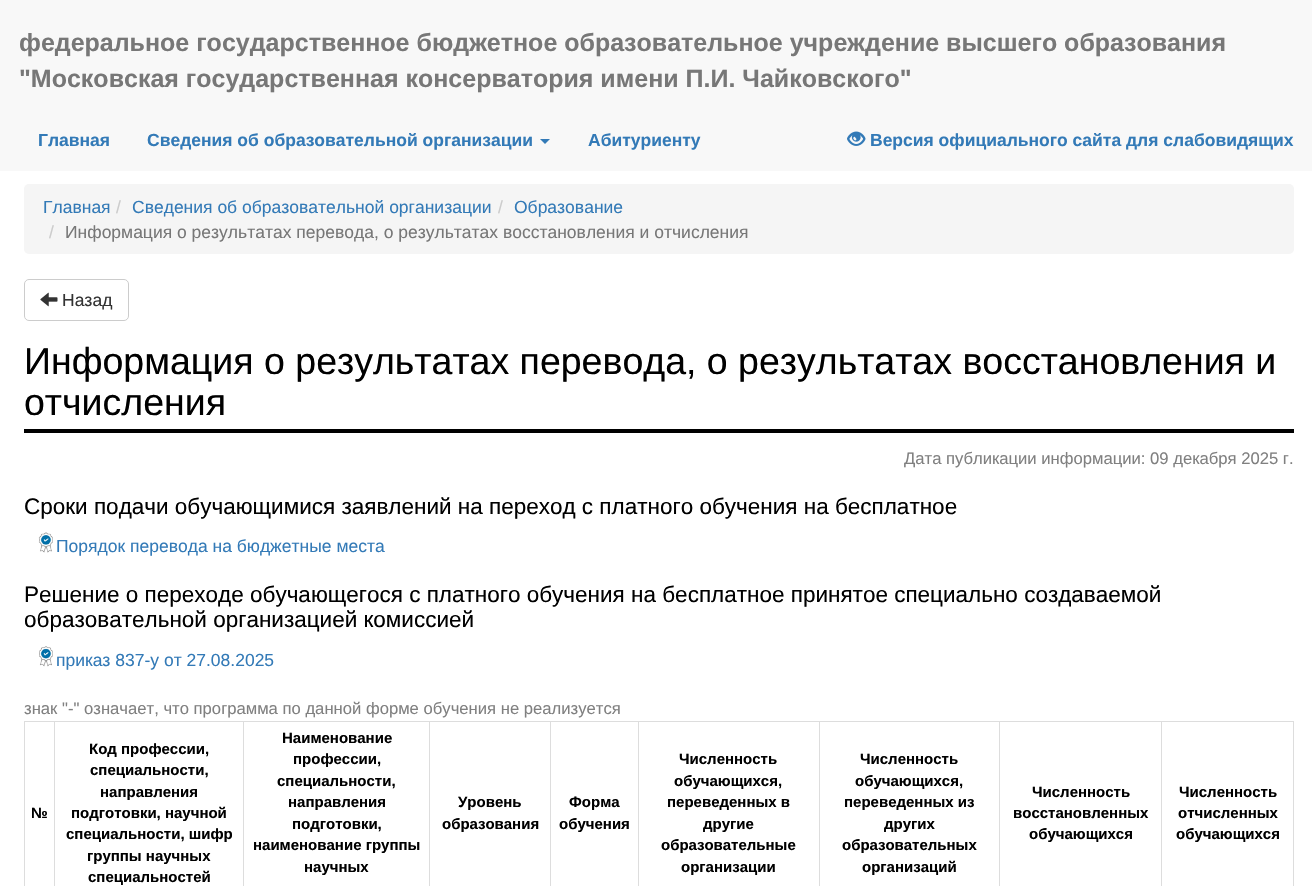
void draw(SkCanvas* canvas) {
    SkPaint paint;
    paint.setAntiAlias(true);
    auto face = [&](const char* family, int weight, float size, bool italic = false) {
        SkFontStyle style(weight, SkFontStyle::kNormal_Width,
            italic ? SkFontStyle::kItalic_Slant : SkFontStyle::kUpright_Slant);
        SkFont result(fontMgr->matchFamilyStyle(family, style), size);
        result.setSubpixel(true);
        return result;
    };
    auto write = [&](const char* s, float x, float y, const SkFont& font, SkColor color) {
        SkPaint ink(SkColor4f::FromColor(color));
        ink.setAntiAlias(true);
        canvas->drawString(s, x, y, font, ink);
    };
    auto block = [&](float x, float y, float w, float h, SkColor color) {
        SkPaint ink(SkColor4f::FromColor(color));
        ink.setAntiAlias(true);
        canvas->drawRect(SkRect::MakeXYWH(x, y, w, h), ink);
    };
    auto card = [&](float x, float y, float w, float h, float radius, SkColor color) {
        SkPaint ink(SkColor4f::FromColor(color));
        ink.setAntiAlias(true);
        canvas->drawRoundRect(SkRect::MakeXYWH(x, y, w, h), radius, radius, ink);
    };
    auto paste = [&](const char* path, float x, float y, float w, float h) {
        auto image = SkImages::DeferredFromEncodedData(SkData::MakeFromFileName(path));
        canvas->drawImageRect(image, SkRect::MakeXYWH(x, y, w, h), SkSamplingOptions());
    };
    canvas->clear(SK_ColorWHITE);
    block(0, 0, 1312, 171, SkColorSetRGB(248, 248, 248));
    auto kFont1 = face("Liberation Sans", 700, 25);
    write("федеральное государственное бюджетное образовательное учреждение высшего образования", 19, 51, kFont1, SkColorSetRGB(119, 119, 119));
    write("\"Московская государственная консерватория имени П.И. Чайковского\"", 19, 87, kFont1, SkColorSetRGB(119, 119, 119));
    auto kFont2 = face("Liberation Sans", 700, 17.5f);
    write("Главная", 38, 146, kFont2, SkColorSetRGB(51, 122, 183));
    write("Сведения об образовательной организации", 147, 146, kFont2, SkColorSetRGB(51, 122, 183));
    paint.setColor(SkColorSetRGB(51, 122, 183));
    canvas->drawPath(SkPathBuilder().moveTo(540, 139).lineTo(550, 139).lineTo(545, 144).close().detach(), paint);
    write("Абитуриенту", 588, 146, kFont2, SkColorSetRGB(51, 122, 183));
    paste("pic1.png", 847, 131, 19, 15);
    write("Версия официального сайта для слабовидящих", 870, 146, kFont2, SkColorSetRGB(51, 122, 183));
    card(24, 184, 1270, 70, 5, SkColorSetRGB(245, 245, 245));
    auto kFont3 = face("Liberation Sans", 400, 17.5f);
    write("Главная", 43, 213, kFont3, SkColorSetRGB(51, 122, 183));
    write("/", 116, 213, kFont3, SkColorSetRGB(204, 204, 204));
    write("Сведения об образовательной организации", 132, 213, kFont3, SkColorSetRGB(51, 122, 183));
    write("/", 498, 213, kFont3, SkColorSetRGB(204, 204, 204));
    write("Образование", 514, 213, kFont3, SkColorSetRGB(51, 122, 183));
    write("/", 49, 238, kFont3, SkColorSetRGB(204, 204, 204));
    write("Информация о результатах перевода, о результатах восстановления и отчисления", 65, 238, kFont3, SkColorSetRGB(119, 119, 119));
    paint.setStyle(SkPaint::kStroke_Style);
    paint.setStrokeWidth(1);
    paint.setColor(SkColorSetRGB(204, 204, 204));
    canvas->drawRoundRect(SkRect::MakeXYWH(24.5f, 279.5f, 104, 41), 4.5f, 4.5f, paint);
    paste("pic2.png", 40, 292, 18, 15);
    write("Назад", 62, 306, kFont3, SkColorSetRGB(51, 51, 51));
    block(24, 429, 1270, 4, SK_ColorBLACK);
    auto kFont4 = face("Liberation Sans", 400, 37.5f);
    write("Информация о результатах перевода, о результатах восстановления и", 24, 374, kFont4, SK_ColorBLACK);
    write("отчисления", 24, 415, kFont4, SK_ColorBLACK);
    auto kFont5 = face("Liberation Sans", 400, 16.65f);
    write("Дата публикации информации: 09 декабря 2025 г.", 904, 464, kFont5, SkColorSetRGB(128, 128, 128));
    auto kFont6 = face("Liberation Sans", 400, 22.5f);
    write("Сроки подачи обучающимися заявлений на переход с платного обучения на бесплатное", 24, 514, kFont6, SK_ColorBLACK);
    paste("pic3.png", 38, 532, 15, 21);
    write("Порядок перевода на бюджетные места", 56, 552, kFont3, SkColorSetRGB(51, 122, 183));
    write("Решение о переходе обучающегося с платного обучения на бесплатное принятое специально создаваемой", 24, 602, kFont6, SK_ColorBLACK);
    write("образовательной организацией комиссией", 24, 627, kFont6, SK_ColorBLACK);
    paste("pic4.png", 39, 646, 14, 21);
    write("приказ 837-у от 27.08.2025", 56, 666, kFont3, SkColorSetRGB(51, 122, 183));
    write("знак \"-\" означает, что программа по данной форме обучения не реализуется", 24, 714, kFont5, SkColorSetRGB(128, 128, 128));
    block(24, 721, 1270, 1, SkColorSetRGB(221, 221, 221));
    block(1293, 721, 1, 165, SkColorSetRGB(221, 221, 221));
    block(24, 721, 1, 165, SkColorSetRGB(221, 221, 221));
    auto kFont7 = face("Liberation Sans", 700, 15);
    write("№", 31, 818, kFont7, SK_ColorBLACK);
    block(54, 721, 1, 165, SkColorSetRGB(221, 221, 221));
    write("Код профессии,", 89, 754, kFont7, SK_ColorBLACK);
    write("специальности,", 90, 775, kFont7, SK_ColorBLACK);
    write("направления", 100, 797, kFont7, SK_ColorBLACK);
    write("подготовки, научной", 71, 818, kFont7, SK_ColorBLACK);
    write("специальности, шифр", 66, 839, kFont7, SK_ColorBLACK);
    write("группы научных", 87, 861, kFont7, SK_ColorBLACK);
    write("специальностей", 88, 882, kFont7, SK_ColorBLACK);
    block(243, 721, 1, 165, SkColorSetRGB(221, 221, 221));
    write("Наименование", 282, 743, kFont7, SK_ColorBLACK);
    write("профессии,", 293, 764, kFont7, SK_ColorBLACK);
    write("специальности,", 277, 786, kFont7, SK_ColorBLACK);
    write("направления", 288, 807, kFont7, SK_ColorBLACK);
    write("подготовки,", 292, 829, kFont7, SK_ColorBLACK);
    write("наименование группы", 253, 850, kFont7, SK_ColorBLACK);
    write("научных", 304, 872, kFont7, SK_ColorBLACK);
    block(429, 721, 1, 165, SkColorSetRGB(221, 221, 221));
    write("Уровень", 458, 807, kFont7, SK_ColorBLACK);
    write("образования", 442, 829, kFont7, SK_ColorBLACK);
    block(550, 721, 1, 165, SkColorSetRGB(221, 221, 221));
    write("Форма", 569, 807, kFont7, SK_ColorBLACK);
    write("обучения", 559, 829, kFont7, SK_ColorBLACK);
    block(638, 721, 1, 165, SkColorSetRGB(221, 221, 221));
    write("Численность", 679, 764, kFont7, SK_ColorBLACK);
    write("обучающихся,", 674, 786, kFont7, SK_ColorBLACK);
    write("переведенных в", 667, 807, kFont7, SK_ColorBLACK);
    write("другие", 703, 829, kFont7, SK_ColorBLACK);
    write("образовательные", 661, 850, kFont7, SK_ColorBLACK);
    write("организации", 681, 872, kFont7, SK_ColorBLACK);
    block(819, 721, 1, 165, SkColorSetRGB(221, 221, 221));
    write("Численность", 860, 764, kFont7, SK_ColorBLACK);
    write("обучающихся,", 855, 786, kFont7, SK_ColorBLACK);
    write("переведенных из", 844, 807, kFont7, SK_ColorBLACK);
    write("других", 884, 829, kFont7, SK_ColorBLACK);
    write("образовательных", 842, 850, kFont7, SK_ColorBLACK);
    write("организаций", 862, 872, kFont7, SK_ColorBLACK);
    block(999, 721, 1, 165, SkColorSetRGB(221, 221, 221));
    write("Численность", 1032, 797, kFont7, SK_ColorBLACK);
    write("восстановленных", 1013, 818, kFont7, SK_ColorBLACK);
    write("обучающихся", 1029, 839, kFont7, SK_ColorBLACK);
    block(1161, 721, 1, 165, SkColorSetRGB(221, 221, 221));
    write("Численность", 1179, 797, kFont7, SK_ColorBLACK);
    write("отчисленных", 1178, 818, kFont7, SK_ColorBLACK);
    write("обучающихся", 1176, 839, kFont7, SK_ColorBLACK);
}
